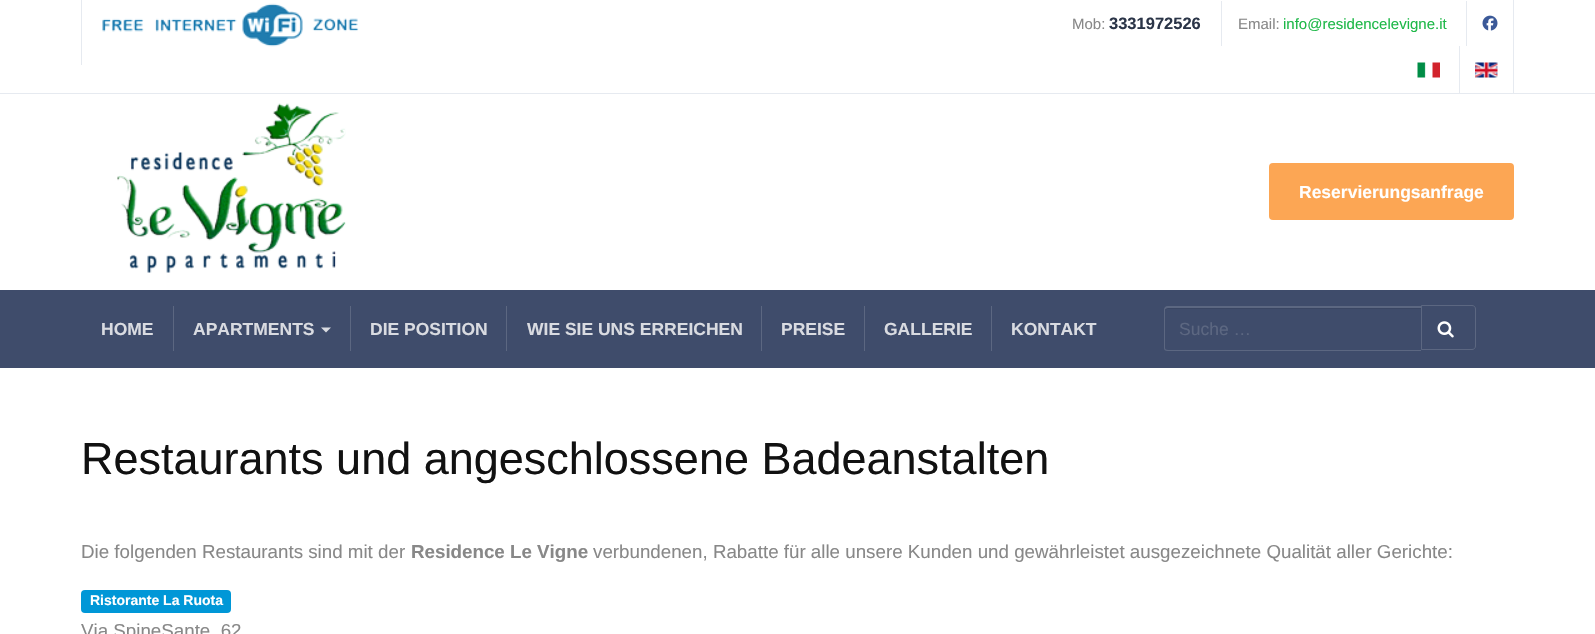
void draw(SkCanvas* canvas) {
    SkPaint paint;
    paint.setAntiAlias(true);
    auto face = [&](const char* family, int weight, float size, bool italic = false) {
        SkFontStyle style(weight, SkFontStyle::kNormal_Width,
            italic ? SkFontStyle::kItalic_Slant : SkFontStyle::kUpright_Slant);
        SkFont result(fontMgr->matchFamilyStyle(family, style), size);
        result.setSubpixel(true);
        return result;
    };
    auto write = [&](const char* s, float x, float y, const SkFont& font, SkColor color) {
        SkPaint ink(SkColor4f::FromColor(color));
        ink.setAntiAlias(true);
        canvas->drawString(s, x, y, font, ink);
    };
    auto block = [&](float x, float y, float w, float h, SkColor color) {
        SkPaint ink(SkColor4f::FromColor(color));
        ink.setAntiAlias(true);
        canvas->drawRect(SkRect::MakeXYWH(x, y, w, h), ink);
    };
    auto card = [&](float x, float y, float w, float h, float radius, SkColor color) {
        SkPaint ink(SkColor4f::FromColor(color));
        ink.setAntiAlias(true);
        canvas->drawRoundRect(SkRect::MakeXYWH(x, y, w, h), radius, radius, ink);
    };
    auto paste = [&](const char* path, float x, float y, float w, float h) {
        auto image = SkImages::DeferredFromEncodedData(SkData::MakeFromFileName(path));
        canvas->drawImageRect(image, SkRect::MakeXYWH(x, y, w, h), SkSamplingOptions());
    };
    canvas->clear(SK_ColorWHITE);
    block(0, 93, 1595, 1, SkColorSetRGB(230, 234, 240));
    block(81, 0, 1, 65, SkColorSetRGB(230, 234, 240));
    paste("pic1.png", 102, 3, 257, 44);
    block(1513, 0, 1, 93, SkColorSetRGB(230, 234, 240));
    auto kFont1 = face("Liberation Sans", 400, 15);
    write("Mob:", 1072, 29, kFont1, SkColorSetRGB(136, 136, 136));
    auto kFont2 = face("Liberation Sans", 700, 16.5f);
    write("3331972526", 1109, 29, kFont2, SkColorSetRGB(43, 53, 72));
    block(1221, 1, 1, 45, SkColorSetRGB(230, 234, 240));
    write("Email:", 1238, 29, kFont1, SkColorSetRGB(136, 136, 136));
    write("info@residencelevigne.it", 1283, 29, kFont1, SkColorSetRGB(30, 184, 72));
    block(1466, 1, 1, 45, SkColorSetRGB(230, 234, 240));
    paste("pic2.png", 1482, 15, 16, 16);
    paste("pic3.png", 1417, 62, 23, 16);
    block(1459, 46, 1, 47, SkColorSetRGB(230, 234, 240));
    paste("pic4.png", 1475, 62, 23, 16);
    paste("pic5.png", 117, 103, 229, 170);
    card(1269, 163, 245, 57, 4, SkColorSetRGB(252, 166, 84));
    auto kFont3 = face("Liberation Sans", 700, 17.5f);
    write("Reservierungsanfrage", 1299, 198, kFont3, SK_ColorWHITE);
    block(0, 290, 1595, 78, SkColorSetRGB(63, 76, 107));
    write("HOME", 101, 335, kFont3, SkColorSetRGB(217, 219, 225));
    block(173, 306, 1, 45, SkColorSetRGB(92, 103, 129));
    write("APARTMENTS", 193, 335, kFont3, SkColorSetRGB(217, 219, 225));
    paint.setColor(SkColorSetRGB(217, 219, 225));
    canvas->drawPath(SkPathBuilder().moveTo(321, 327.5f).lineTo(331, 327.5f).lineTo(326, 332.5f).close().detach(), paint);
    block(350, 306, 1, 45, SkColorSetRGB(92, 103, 129));
    write("DIE POSITION", 370, 335, kFont3, SkColorSetRGB(217, 219, 225));
    block(506, 306, 1, 45, SkColorSetRGB(92, 103, 129));
    write("WIE SIE UNS ERREICHEN", 527, 335, kFont3, SkColorSetRGB(217, 219, 225));
    block(761, 306, 1, 45, SkColorSetRGB(92, 103, 129));
    write("PREISE", 781, 335, kFont3, SkColorSetRGB(217, 219, 225));
    block(864, 306, 1, 45, SkColorSetRGB(92, 103, 129));
    write("GALLERIE", 884, 335, kFont3, SkColorSetRGB(217, 219, 225));
    block(991, 306, 1, 45, SkColorSetRGB(92, 103, 129));
    write("KONTAKT", 1011, 335, kFont3, SkColorSetRGB(217, 219, 225));
    paint.setColor(SkColorSetRGB(58, 70, 99));
    canvas->drawPath(SkPathBuilder().moveTo(1168, 309).lineTo(1421, 309).lineTo(1421, 308).lineTo(1168, 308).lineTo(1165, 309).lineTo(1165, 311).cubicTo(1165, 310, 1166, 309, 1168, 309).close().detach(), paint);
    paint.setColor(SkColorSetRGB(92, 103, 129));
    canvas->drawPath(SkPathBuilder(SkPathFillType::kEvenOdd).moveTo(1168, 306).lineTo(1421, 306).lineTo(1421, 351).lineTo(1168, 351).cubicTo(1165, 351, 1164, 350, 1164, 348).lineTo(1164, 310).cubicTo(1164, 308, 1165, 306, 1168, 306).close().moveTo(1168, 308).lineTo(1421, 308).lineTo(1421, 350).lineTo(1168, 350).cubicTo(1166, 350, 1165, 349, 1165, 348).lineTo(1165, 310).cubicTo(1165, 309, 1166, 308, 1168, 308).close().detach(), paint);
    auto kFont4 = face("Liberation Sans", 400, 17.5f);
    write("Suche …", 1179, 335, kFont4, SkColorSetRGB(92, 103, 129));
    paint.setStyle(SkPaint::kStroke_Style);
    paint.setStrokeWidth(1);
    canvas->drawPath(SkPathBuilder().moveTo(1421.5f, 305.5f).lineTo(1472, 305.5f).cubicTo(1474, 305.5f, 1475.5f, 307, 1475.5f, 309).lineTo(1475.5f, 346).cubicTo(1475.5f, 348, 1474, 349.5f, 1472, 349.5f).lineTo(1421.5f, 349.5f).close().detach(), paint);
    paste("pic6.png", 1437, 321, 17, 17);
    auto kFont5 = face("Liberation Sans", 400, 45);
    write("Restaurants und angeschlossene Badeanstalten", 81, 474, kFont5, SkColorSetRGB(17, 17, 17));
    auto kFont6 = face("Liberation Sans", 400, 18.75f);
    write("Die folgenden Restaurants sind mit der", 81, 558, kFont6, SkColorSetRGB(136, 136, 136));
    auto kFont7 = face("Liberation Sans", 700, 18.75f);
    write("Residence Le Vigne", 411, 558, kFont7, SkColorSetRGB(136, 136, 136));
    write("verbundenen, Rabatte für alle unsere Kunden und gewährleistet ausgezeichnete Qualität aller Gerichte:", 593, 558, kFont6, SkColorSetRGB(136, 136, 136));
    card(81, 590, 150, 23, 4, SkColorSetRGB(0, 151, 215));
    auto kFont8 = face("Liberation Sans", 700, 14);
    write("Ristorante La Ruota", 90, 605, kFont8, SK_ColorWHITE);
    write("Via SpineSante, 62", 81, 637, kFont6, SkColorSetRGB(136, 136, 136));
}
